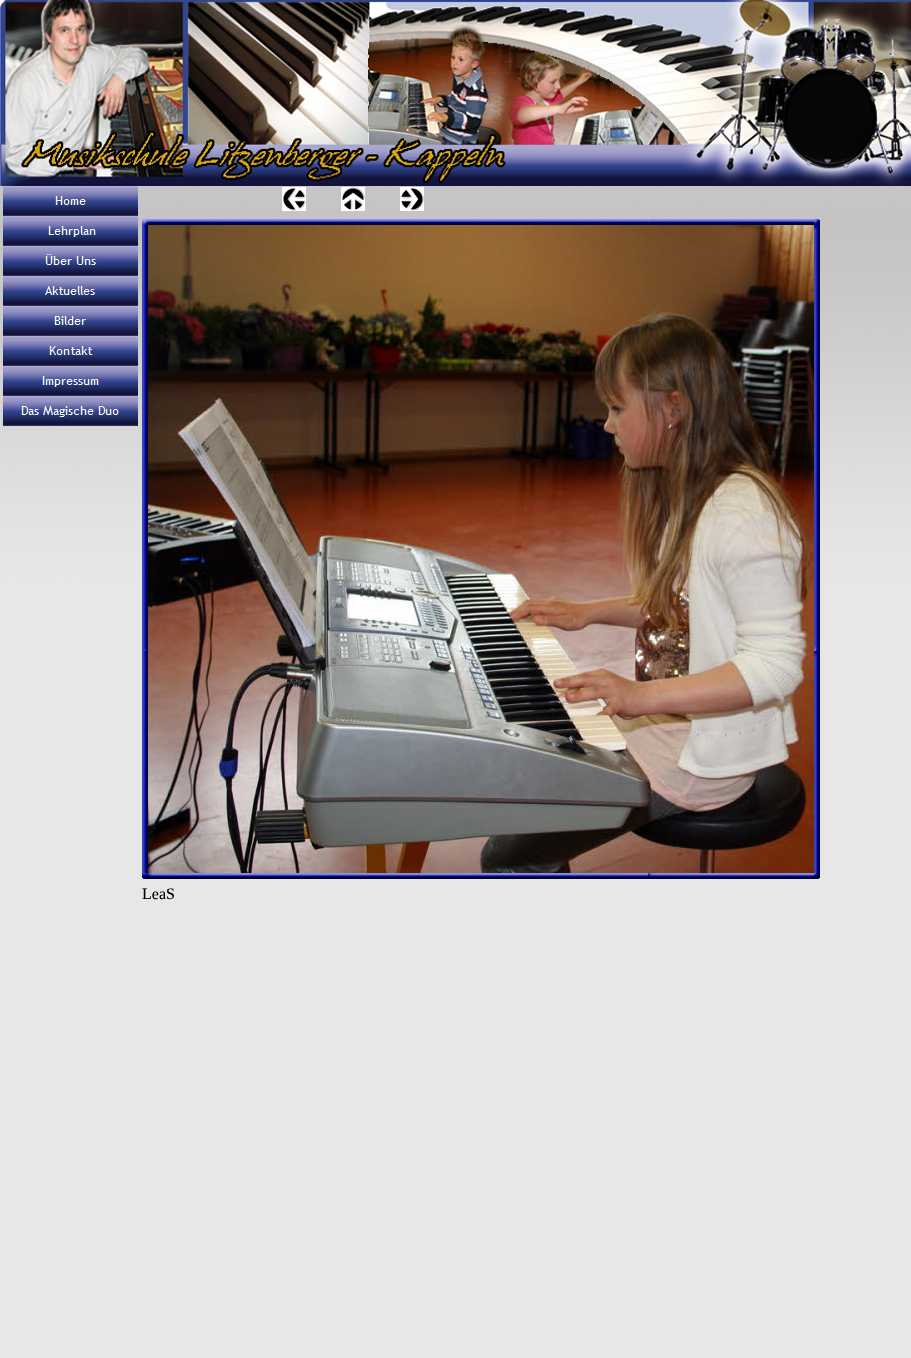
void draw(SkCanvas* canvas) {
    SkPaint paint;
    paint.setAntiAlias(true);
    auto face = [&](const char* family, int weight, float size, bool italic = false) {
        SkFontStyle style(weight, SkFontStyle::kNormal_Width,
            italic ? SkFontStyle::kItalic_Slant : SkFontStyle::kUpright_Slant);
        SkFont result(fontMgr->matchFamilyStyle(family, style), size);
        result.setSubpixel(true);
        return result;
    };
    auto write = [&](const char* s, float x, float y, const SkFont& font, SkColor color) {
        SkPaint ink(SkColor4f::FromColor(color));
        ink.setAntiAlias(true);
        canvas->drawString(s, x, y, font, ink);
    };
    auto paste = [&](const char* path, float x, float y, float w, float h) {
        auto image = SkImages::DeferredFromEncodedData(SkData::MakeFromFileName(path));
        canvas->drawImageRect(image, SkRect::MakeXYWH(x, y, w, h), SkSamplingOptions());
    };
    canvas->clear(SK_ColorWHITE);
    paste("pic1.png", 0, 186, 911, 1172);
    paste("pic2.png", 0, 0, 911, 186);
    paste("pic3.png", 3, 186, 135, 30);
    paste("pic4.png", 3, 216, 135, 30);
    paste("pic5.png", 3, 246, 135, 30);
    paste("pic6.png", 3, 276, 135, 30);
    paste("pic7.png", 3, 306, 135, 30);
    paste("pic8.png", 3, 336, 135, 30);
    paste("pic9.png", 3, 366, 135, 30);
    paste("pic10.png", 3, 396, 135, 30);
    paste("pic11.png", 282, 187, 24, 24);
    paste("pic12.png", 341, 187, 24, 24);
    paste("pic13.png", 400, 187, 24, 24);
    paste("pic14.png", 142, 219, 6, 6);
    paste("pic15.png", 148, 219, 666, 6);
    paste("pic16.png", 814, 219, 6, 6);
    paste("pic17.png", 142, 225, 6, 648);
    paste("pic18.png", 148, 225, 666, 648);
    paste("pic19.png", 814, 225, 6, 648);
    paste("pic20.png", 142, 873, 6, 6);
    paste("pic21.png", 148, 873, 666, 6);
    paste("pic22.png", 814, 873, 6, 6);
    auto kFont1 = face("Liberation Serif", 400, 16);
    write("LeaS", 142, 899, kFont1, SK_ColorBLACK);
}
